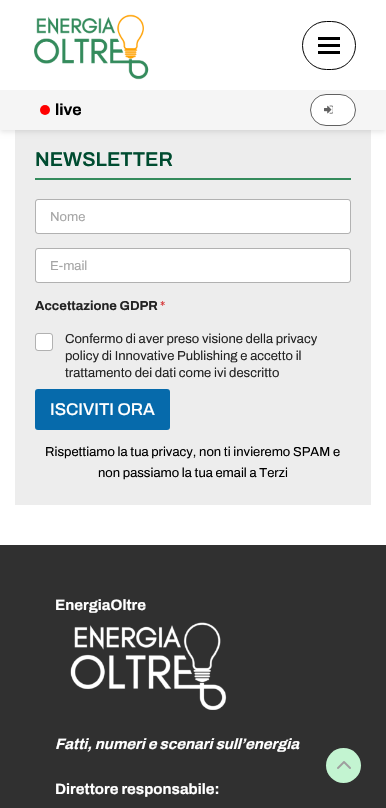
void draw(SkCanvas* canvas) {
    SkPaint paint;
    paint.setAntiAlias(true);
    auto face = [&](const char* family, int weight, float size, bool italic = false) {
        SkFontStyle style(weight, SkFontStyle::kNormal_Width,
            italic ? SkFontStyle::kItalic_Slant : SkFontStyle::kUpright_Slant);
        SkFont result(fontMgr->matchFamilyStyle(family, style), size);
        result.setSubpixel(true);
        return result;
    };
    auto write = [&](const char* s, float x, float y, const SkFont& font, SkColor color) {
        SkPaint ink(SkColor4f::FromColor(color));
        ink.setAntiAlias(true);
        canvas->drawString(s, x, y, font, ink);
    };
    auto block = [&](float x, float y, float w, float h, SkColor color) {
        SkPaint ink(SkColor4f::FromColor(color));
        ink.setAntiAlias(true);
        canvas->drawRect(SkRect::MakeXYWH(x, y, w, h), ink);
    };
    auto card = [&](float x, float y, float w, float h, float radius, SkColor color) {
        SkPaint ink(SkColor4f::FromColor(color));
        ink.setAntiAlias(true);
        canvas->drawRoundRect(SkRect::MakeXYWH(x, y, w, h), radius, radius, ink);
    };
    auto paste = [&](const char* path, float x, float y, float w, float h) {
        auto image = SkImages::DeferredFromEncodedData(SkData::MakeFromFileName(path));
        canvas->drawImageRect(image, SkRect::MakeXYWH(x, y, w, h), SkSamplingOptions());
    };
    canvas->clear(SK_ColorWHITE);
    block(15, 130, 356, 375, SkColorSetRGB(237, 237, 237));
    paint.setColor(SkColorSetARGB(26, 0, 0, 0));
    paint.setMaskFilter(SkMaskFilter::MakeBlur(kNormal_SkBlurStyle, 2.5f));
    canvas->drawRect(SkRect::MakeXYWH(0, 2, 386, 130), paint);
    paint.setMaskFilter(nullptr);
    block(0, 0, 386, 90, SK_ColorWHITE);
    paste("pic1.png", 34, 14, 115, 66);
    paint.setStyle(SkPaint::kStroke_Style);
    paint.setStrokeWidth(1);
    paint.setColor(SK_ColorBLACK);
    canvas->drawRoundRect(SkRect::MakeXYWH(302.5f, 21.5f, 53, 48), 24, 24, paint);
    block(318, 44, 22, 3, SK_ColorBLACK);
    block(318, 37, 22, 3, SK_ColorBLACK);
    block(318, 51, 22, 3, SK_ColorBLACK);
    block(0, 90, 386, 40, SkColorSetRGB(245, 245, 245));
    paint.setStyle(SkPaint::kFill_Style);
    paint.setColor(SkColorSetRGB(255, 0, 0));
    canvas->drawCircle(45, 110, 5, paint);
    auto kFont1 = face("Archivo", 700, 16);
    write("live", 55, 115, kFont1, SK_ColorBLACK);
    paint.setColor(SK_ColorWHITE);
    canvas->drawRoundRect(SkRect::MakeXYWH(310.5f, 94.5f, 45, 31), 15.5f, 15.5f, paint);
    paint.setStyle(SkPaint::kStroke_Style);
    paint.setColor(SkColorSetRGB(97, 97, 97));
    canvas->drawRoundRect(SkRect::MakeXYWH(310.5f, 94.5f, 45, 31), 15.5f, 15.5f, paint);
    paste("pic2.png", 324, 105, 9, 9);
    block(35, 178, 316, 2, SkColorSetRGB(52, 139, 92));
    auto kFont2 = face("Archivo", 600, 20);
    write("NEWSLETTER", 35, 166, kFont2, SkColorSetRGB(0, 76, 48));
    card(36, 200, 314, 33, 2, SK_ColorWHITE);
    paint.setColor(SkColorSetARGB(64, 0, 0, 0));
    canvas->drawRoundRect(SkRect::MakeXYWH(35.5f, 199.5f, 315, 34), 2.5f, 2.5f, paint);
    auto kFont3 = face("Archivo", 400, 13);
    write("Nome", 50, 221, kFont3, SkColorSetRGB(166, 166, 166));
    card(36, 249, 314, 33, 2, SK_ColorWHITE);
    canvas->drawRoundRect(SkRect::MakeXYWH(35.5f, 248.5f, 315, 34), 2.5f, 2.5f, paint);
    write("E-mail", 50, 270, kFont3, SkColorSetRGB(166, 166, 166));
    auto kFont4 = face("Archivo", 700, 13);
    write("Accettazione GDPR", 35, 310, kFont4, SkColorSetRGB(36, 36, 36));
    write("*", 160, 310, kFont3, SkColorSetRGB(214, 54, 55));
    card(36, 334, 16, 16, 2, SK_ColorWHITE);
    canvas->drawRoundRect(SkRect::MakeXYWH(35.5f, 333.5f, 17, 17), 2.5f, 2.5f, paint);
    write("Confermo di aver preso visione della privacy", 65, 343, kFont3, SkColorSetRGB(36, 36, 36));
    write("policy di Innovative Publishing e accetto il", 65, 360, kFont3, SkColorSetRGB(36, 36, 36));
    write("trattamento dei dati come ivi descritto", 65, 377, kFont3, SkColorSetRGB(36, 36, 36));
    card(35, 389, 135, 41, 3, SkColorSetRGB(6, 106, 171));
    auto kFont5 = face("Archivo", 500, 17);
    write("ISCIVITI ORA", 50, 415, kFont5, SK_ColorWHITE);
    write("Rispettiamo la tua privacy, non ti invieremo SPAM e", 45, 456, kFont3, SK_ColorBLACK);
    write("non passiamo la tua email a Terzi", 98, 477, kFont3, SK_ColorBLACK);
    block(0, 545, 386, 263, SkColorSetRGB(48, 48, 48));
    auto kFont6 = face("Archivo", 700, 15);
    write("EnergiaOltre", 55, 610, kFont6, SK_ColorWHITE);
    paste("pic3.png", 70, 622, 157, 88);
    auto kFont7 = face("Archivo", 700, 15, true);
    write("Fatti, numeri e scenari sull’energia", 55, 749, kFont7, SK_ColorWHITE);
    write("Direttore responsabile:", 55, 794, kFont6, SK_ColorWHITE);
    paint.setStyle(SkPaint::kFill_Style);
    paint.setColor(SkColorSetRGB(195, 244, 209));
    canvas->drawCircle(343.5f, 765.5f, 17.5f, paint);
    paste("pic4.png", 337, 761, 14, 8);
}
